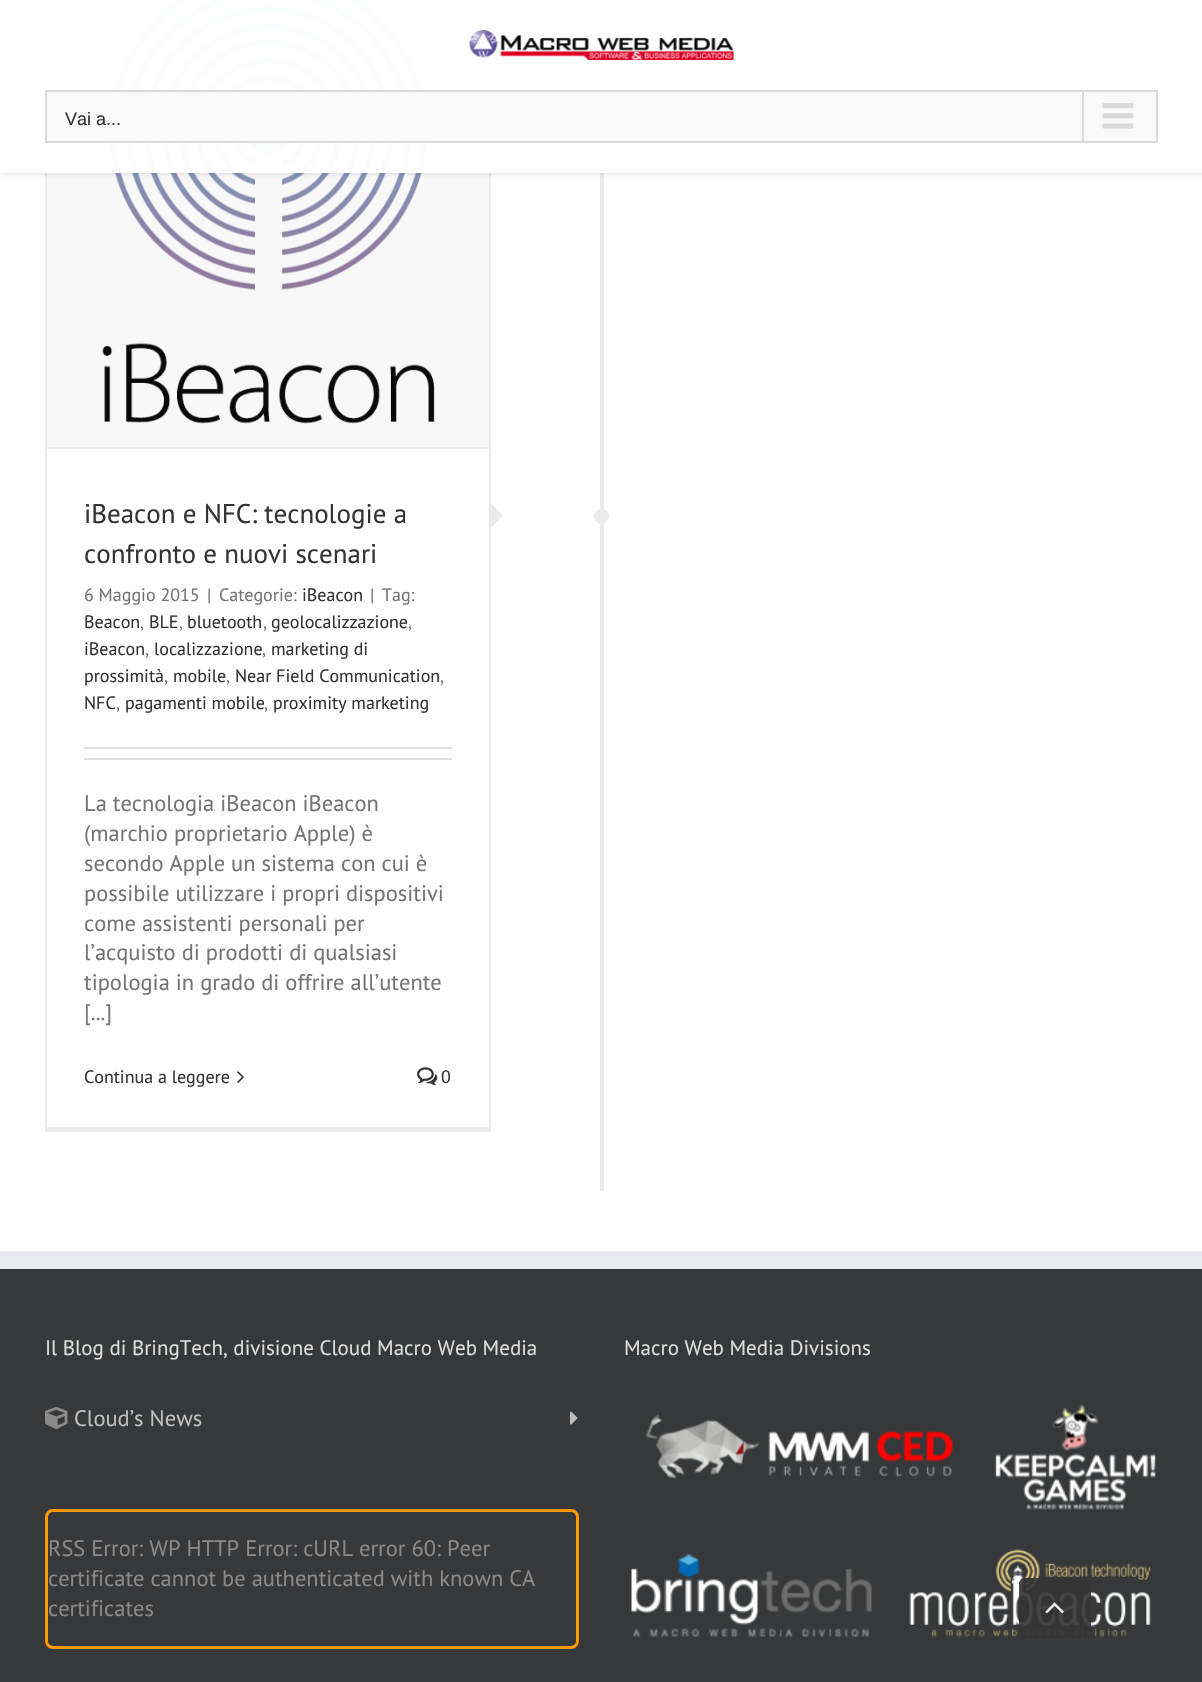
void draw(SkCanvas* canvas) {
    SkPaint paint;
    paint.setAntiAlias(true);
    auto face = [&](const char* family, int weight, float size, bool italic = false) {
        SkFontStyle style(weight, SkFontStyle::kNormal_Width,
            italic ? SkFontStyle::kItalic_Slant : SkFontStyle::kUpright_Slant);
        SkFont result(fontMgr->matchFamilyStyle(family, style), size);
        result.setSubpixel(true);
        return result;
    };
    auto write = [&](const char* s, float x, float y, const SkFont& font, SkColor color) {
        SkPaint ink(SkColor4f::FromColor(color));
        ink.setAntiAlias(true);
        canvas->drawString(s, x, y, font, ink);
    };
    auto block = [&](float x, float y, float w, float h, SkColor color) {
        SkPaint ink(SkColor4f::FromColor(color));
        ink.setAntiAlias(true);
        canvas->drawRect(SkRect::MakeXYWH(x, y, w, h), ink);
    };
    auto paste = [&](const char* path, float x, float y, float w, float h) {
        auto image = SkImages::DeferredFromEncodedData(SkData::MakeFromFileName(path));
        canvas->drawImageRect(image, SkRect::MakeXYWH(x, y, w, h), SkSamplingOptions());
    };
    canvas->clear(SK_ColorWHITE);
    block(489, 0, 2, 1131, SkColorSetRGB(234, 234, 234));
    block(45, 1127, 446, 5, SkColorSetRGB(234, 234, 234));
    block(45, 0, 2, 1131, SkColorSetRGB(234, 234, 234));
    paste("pic3.png", 47, 0, 442, 447);
    block(600, 0, 4, 1191, SkColorSetRGB(235, 234, 234));
    canvas->save();
    canvas->clipPath(SkPathBuilder(SkPathFillType::kEvenOdd).moveTo(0, 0).lineTo(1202, 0).lineTo(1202, 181).lineTo(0, 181).close().moveTo(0, 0).lineTo(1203, 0).lineTo(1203, 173).lineTo(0, 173).close().detach(), true);
    paint.setColor(SkColorSetARGB(31, 0, 0, 0));
    paint.setMaskFilter(SkMaskFilter::MakeBlur(kNormal_SkBlurStyle, 2));
    canvas->drawRect(SkRect::MakeXYWH(0, 2, 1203, 172), paint);
    paint.setMaskFilter(nullptr);
    canvas->restore();
    block(0, 0, 1202, 173, SkColorSetARGB(247, 255, 255, 255));
    paste("pic1.png", 469, 30, 265, 30);
    paint.setColor(SkColorSetRGB(249, 249, 249));
    canvas->drawRect(SkRect::MakeXYWH(46, 91, 1111, 51), paint);
    paint.setStyle(SkPaint::kStroke_Style);
    paint.setStrokeWidth(2);
    paint.setColor(SkColorSetRGB(218, 218, 218));
    canvas->drawRect(SkRect::MakeXYWH(46, 91, 1111, 51), paint);
    auto kFont1 = face("Liberation Sans", 400, 18);
    write("Vai a...", 65, 125, kFont1, SkColorSetRGB(51, 51, 51));
    block(1082, 92, 2, 49, SkColorSetRGB(218, 218, 218));
    paste("pic2.png", 1102, 103, 32, 26);
    block(47, 447, 442, 2, SkColorSetRGB(235, 234, 234));
    auto kFont2 = face("PT Sans", 400, 27);
    write("iBeacon e NFC: tecnologie a", 84, 523, kFont2, SkColorSetRGB(51, 51, 51));
    write("confronto e nuovi scenari", 84, 563, kFont2, SkColorSetRGB(51, 51, 51));
    auto kFont3 = face("PT Sans", 400, 18);
    write("6 Maggio 2015", 84, 601, kFont3, SkColorSetRGB(116, 116, 116));
    write("|", 207, 601, kFont3, SkColorSetRGB(116, 116, 116));
    write("Categorie:", 219, 601, kFont3, SkColorSetRGB(116, 116, 116));
    write("iBeacon", 302, 601, kFont3, SkColorSetRGB(51, 51, 51));
    write("|", 370, 601, kFont3, SkColorSetRGB(116, 116, 116));
    write("Tag:", 382, 601, kFont3, SkColorSetRGB(116, 116, 116));
    write("Beacon", 84, 628, kFont3, SkColorSetRGB(51, 51, 51));
    write(",", 140, 628, kFont3, SkColorSetRGB(116, 116, 116));
    write("BLE", 149, 628, kFont3, SkColorSetRGB(51, 51, 51));
    write(",", 179, 628, kFont3, SkColorSetRGB(116, 116, 116));
    write("bluetooth", 187, 628, kFont3, SkColorSetRGB(51, 51, 51));
    write(",", 263, 628, kFont3, SkColorSetRGB(116, 116, 116));
    write("geolocalizzazione", 271, 628, kFont3, SkColorSetRGB(51, 51, 51));
    write(",", 408, 628, kFont3, SkColorSetRGB(116, 116, 116));
    write("iBeacon", 84, 655, kFont3, SkColorSetRGB(51, 51, 51));
    write(",", 145, 655, kFont3, SkColorSetRGB(116, 116, 116));
    write("localizzazione", 154, 655, kFont3, SkColorSetRGB(51, 51, 51));
    write(",", 262, 655, kFont3, SkColorSetRGB(116, 116, 116));
    write("marketing di", 271, 655, kFont3, SkColorSetRGB(51, 51, 51));
    write("prossimità", 84, 682, kFont3, SkColorSetRGB(51, 51, 51));
    write(",", 164, 682, kFont3, SkColorSetRGB(116, 116, 116));
    write("mobile", 173, 682, kFont3, SkColorSetRGB(51, 51, 51));
    write(",", 226, 682, kFont3, SkColorSetRGB(116, 116, 116));
    write("Near Field Communication", 235, 682, kFont3, SkColorSetRGB(51, 51, 51));
    write(",", 440, 682, kFont3, SkColorSetRGB(116, 116, 116));
    write("NFC", 84, 709, kFont3, SkColorSetRGB(51, 51, 51));
    write(",", 116, 709, kFont3, SkColorSetRGB(116, 116, 116));
    write("pagamenti mobile", 125, 709, kFont3, SkColorSetRGB(51, 51, 51));
    write(",", 264, 709, kFont3, SkColorSetRGB(116, 116, 116));
    write("proximity marketing", 273, 709, kFont3, SkColorSetRGB(51, 51, 51));
    block(84, 747, 368, 2, SkColorSetRGB(224, 222, 222));
    block(84, 758, 368, 2, SkColorSetRGB(224, 222, 222));
    auto kFont4 = face("PT Sans", 400, 22.5f);
    write("La tecnologia iBeacon iBeacon", 84, 811, kFont4, SkColorSetRGB(116, 116, 116));
    write("(marchio proprietario Apple) è", 84, 841, kFont4, SkColorSetRGB(116, 116, 116));
    write("secondo Apple un sistema con cui è", 84, 871, kFont4, SkColorSetRGB(116, 116, 116));
    write("possibile utilizzare i propri dispositivi", 84, 901, kFont4, SkColorSetRGB(116, 116, 116));
    write("come assistenti personali per", 84, 931, kFont4, SkColorSetRGB(116, 116, 116));
    write("l’acquisto di prodotti di qualsiasi", 84, 960, kFont4, SkColorSetRGB(116, 116, 116));
    write("tipologia in grado di offrire all’utente", 84, 990, kFont4, SkColorSetRGB(116, 116, 116));
    write("[...]", 84, 1020, kFont4, SkColorSetRGB(116, 116, 116));
    paste("pic4.png", 491, 504, 12, 24);
    paint.setStyle(SkPaint::kFill_Style);
    paint.setColor(SkColorSetRGB(235, 234, 234));
    canvas->drawCircle(601.5f, 516.5f, 7.5f, paint);
    write("Continua a leggere", 84, 1083, kFont3, SkColorSetRGB(51, 51, 51));
    paste("pic5.png", 237, 1071, 7, 12);
    paste("pic6.png", 417, 1067, 21, 19);
    write("0", 441, 1083, kFont3, SkColorSetRGB(51, 51, 51));
    block(0, 1269, 1202, 413, SkColorSetRGB(54, 56, 57));
    block(0, 1251, 1202, 18, SkColorSetRGB(233, 234, 238));
    auto kFont5 = face("PT Sans", 400, 21);
    write("Il Blog di BringTech, divisione Cloud Macro Web Media", 45, 1355, kFont5, SkColorSetRGB(221, 221, 221));
    paste("pic7.png", 45, 1407, 23, 22);
    write("Cloud’s News", 74, 1426, kFont4, SkColorSetRGB(191, 191, 191));
    paste("pic8.png", 570, 1411, 8, 14);
    paint.setStyle(SkPaint::kStroke_Style);
    paint.setStrokeWidth(3);
    paint.setColor(SkColorSetRGB(255, 153, 0));
    canvas->drawRoundRect(SkRect::MakeXYWH(46.5f, 1510.5f, 531, 137), 6.5f, 6.5f, paint);
    write("RSS Error: WP HTTP Error: cURL error 60: Peer", 48, 1556, kFont4, SkColorSetRGB(140, 137, 137));
    write("certificate cannot be authenticated with known CA", 48, 1586, kFont4, SkColorSetRGB(140, 137, 137));
    write("certificates", 48, 1616, kFont4, SkColorSetRGB(140, 137, 137));
    write("Macro Web Media Divisions", 624, 1355, kFont5, SkColorSetRGB(221, 221, 221));
    paste("pic9.png", 645, 1414, 308, 65);
    paste("pic10.png", 995, 1404, 161, 106);
    paste("pic11.png", 631, 1553, 241, 84);
    paste("pic12.png", 909, 1549, 242, 88);
    paint.setStyle(SkPaint::kFill_Style);
    paint.setColor(SkColorSetARGB(230, 51, 51, 51));
    canvas->drawPath(SkPathBuilder().moveTo(1025, 1578).lineTo(1085, 1578).cubicTo(1088.5f, 1578, 1091, 1580.5f, 1091, 1584).lineTo(1091, 1638).lineTo(1019, 1638).lineTo(1019, 1584).cubicTo(1019, 1580.5f, 1021.5f, 1578, 1025, 1578).close().detach(), paint);
    paste("pic13.png", 1045, 1602, 19, 12);
}
